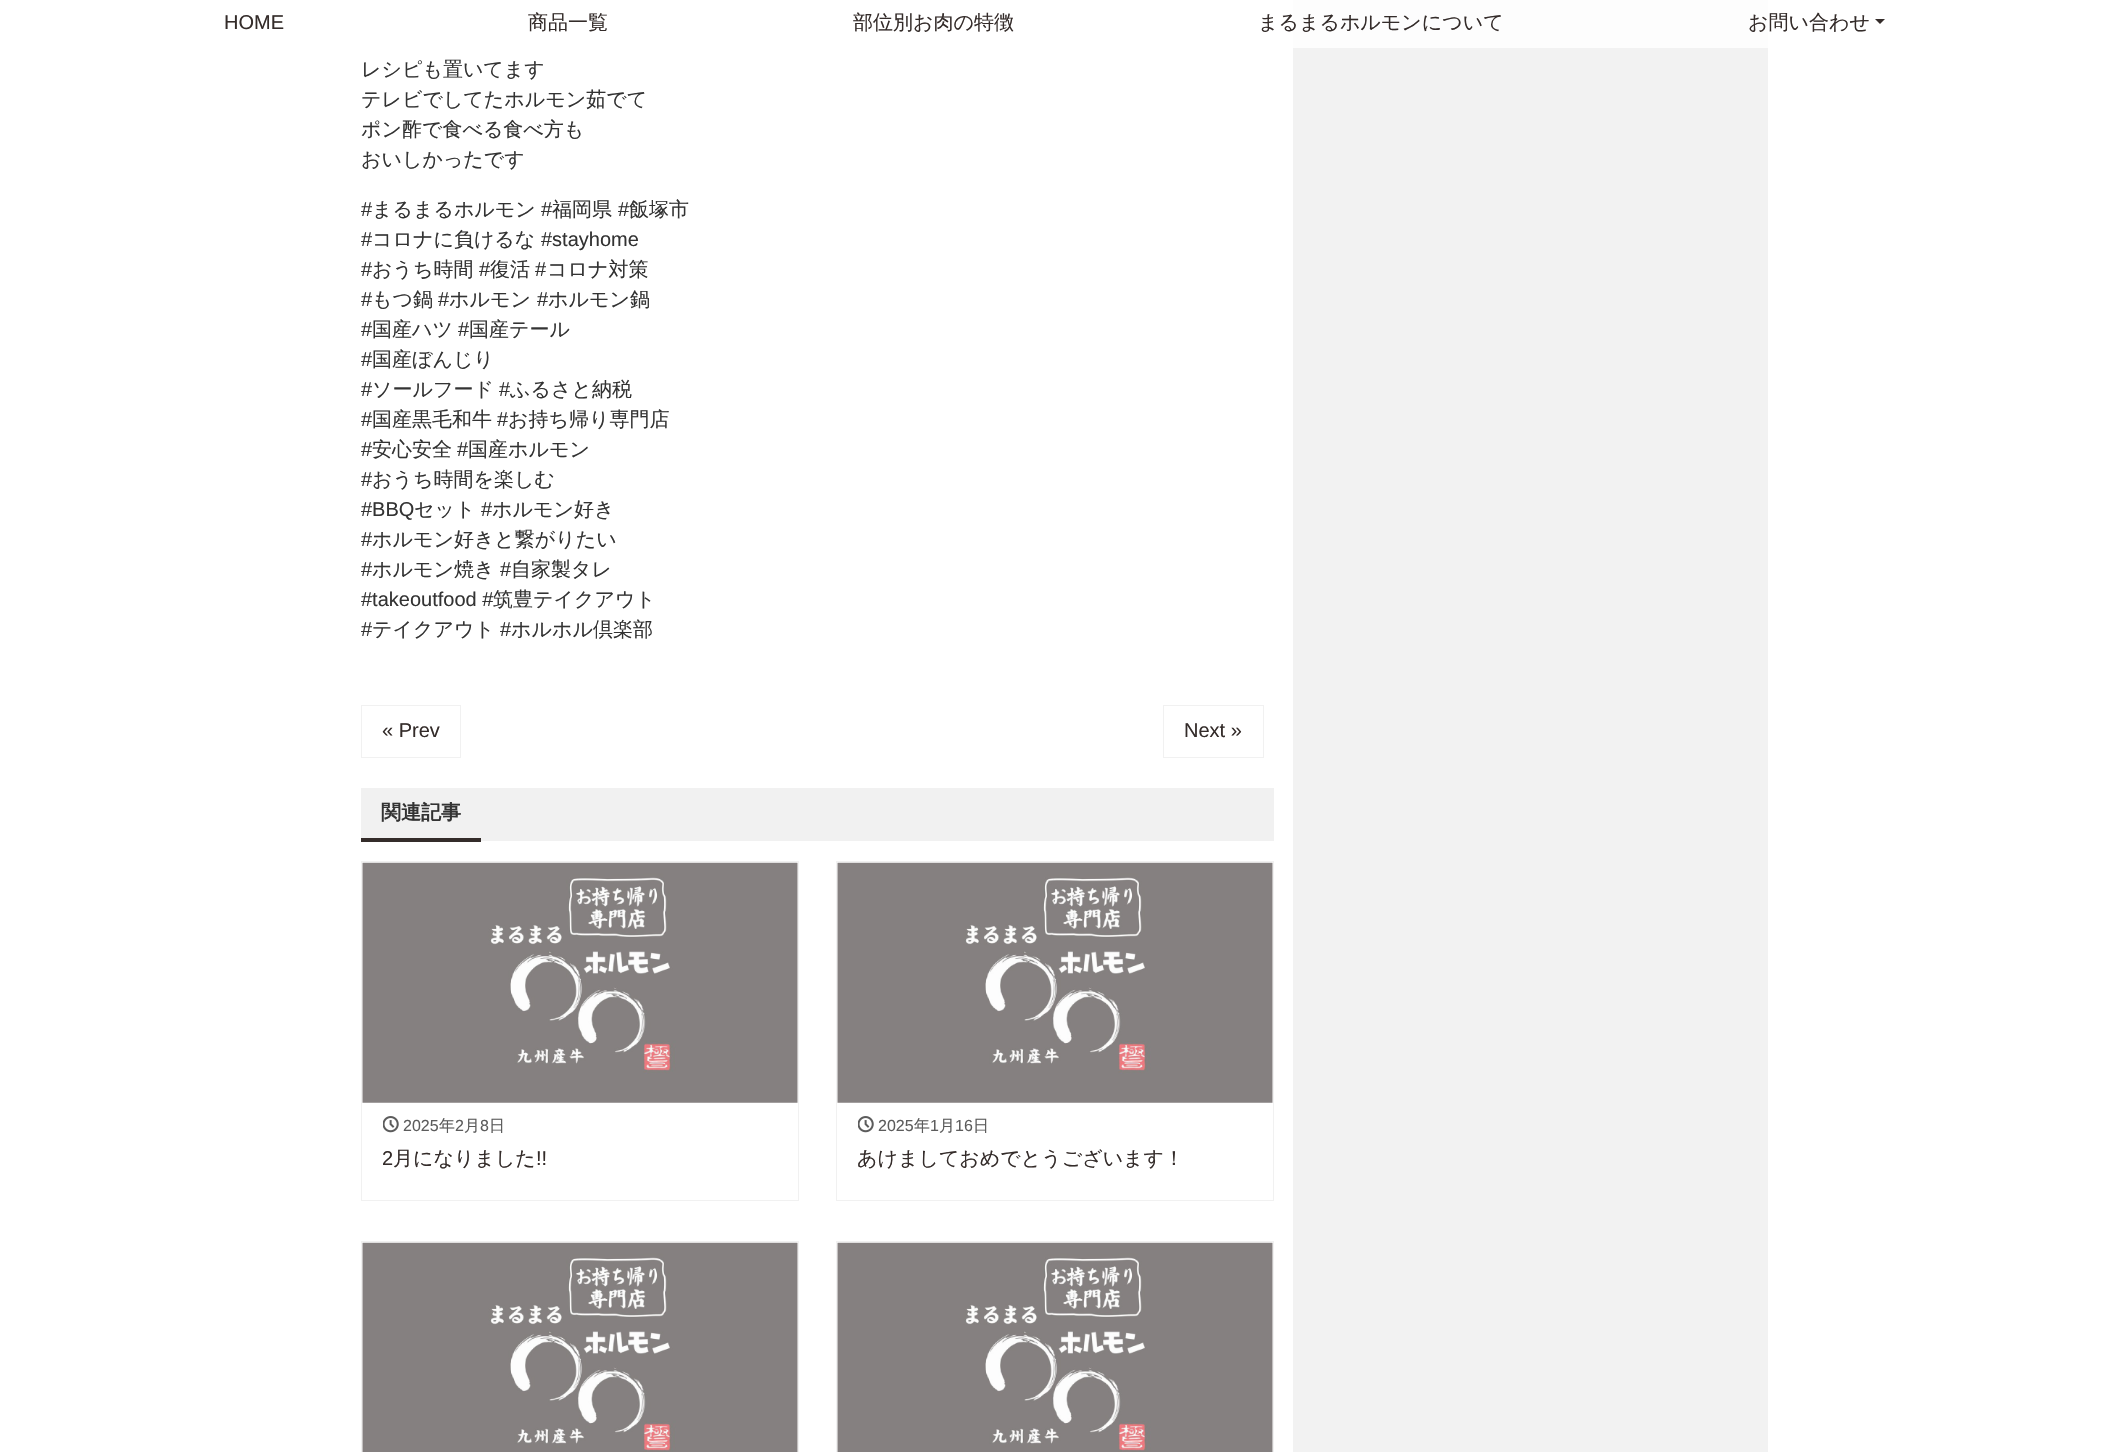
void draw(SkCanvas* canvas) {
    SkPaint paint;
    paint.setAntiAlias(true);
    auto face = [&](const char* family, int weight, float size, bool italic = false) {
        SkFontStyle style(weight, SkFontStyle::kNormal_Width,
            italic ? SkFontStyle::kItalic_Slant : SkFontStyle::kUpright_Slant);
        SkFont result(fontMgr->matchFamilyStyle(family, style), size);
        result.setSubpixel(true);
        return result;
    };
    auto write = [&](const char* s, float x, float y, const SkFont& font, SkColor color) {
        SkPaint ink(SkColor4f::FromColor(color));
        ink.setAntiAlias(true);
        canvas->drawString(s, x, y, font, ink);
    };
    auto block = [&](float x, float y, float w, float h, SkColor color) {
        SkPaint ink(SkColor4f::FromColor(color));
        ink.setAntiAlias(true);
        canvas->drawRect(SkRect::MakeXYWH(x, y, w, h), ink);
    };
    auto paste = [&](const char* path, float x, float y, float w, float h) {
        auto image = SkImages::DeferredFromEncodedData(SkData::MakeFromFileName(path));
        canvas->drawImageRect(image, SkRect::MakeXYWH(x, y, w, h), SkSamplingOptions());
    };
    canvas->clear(SK_ColorWHITE);
    block(1293, 0, 475, 1452, SkColorSetRGB(242, 242, 242));
    block(1293, 0, 475, 48, SkColorSetARGB(204, 255, 255, 255));
    auto kFont1 = face("Liberation Sans", 400, 20);
    write("HOME", 224, 29, kFont1, SkColorSetRGB(52, 44, 42));
    auto kFont2 = face("WenQuanYi Zen Hei", 500, 20);
    write("商品一覧", 528, 29, kFont2, SkColorSetRGB(52, 44, 42));
    write("部位別お肉の特徴", 853, 29, kFont2, SkColorSetRGB(52, 44, 42));
    write("まるまるホルモンについて", 1258, 29, kFont2, SkColorSetRGB(52, 44, 42));
    write("お問い合わせ", 1748, 29, kFont2, SkColorSetRGB(52, 44, 42));
    paint.setColor(SkColorSetRGB(52, 44, 42));
    canvas->drawPath(SkPathBuilder().moveTo(1875, 19).lineTo(1885, 19).lineTo(1880, 24).close().detach(), paint);
    write("レシピも置いてます", 361, 76, kFont2, SkColorSetRGB(51, 51, 51));
    write("テレビでしてたホルモン茹でて", 361, 106, kFont2, SkColorSetRGB(51, 51, 51));
    write("ポン酢で食べる食べ方も", 361, 136, kFont2, SkColorSetRGB(51, 51, 51));
    write("おいしかったです", 361, 166, kFont2, SkColorSetRGB(51, 51, 51));
    write("#", 361, 216, kFont1, SkColorSetRGB(51, 51, 51));
    write("まるまるホルモン", 372, 216, kFont2, SkColorSetRGB(51, 51, 51));
    write("#", 541, 216, kFont1, SkColorSetRGB(51, 51, 51));
    write("福岡県", 552, 216, kFont2, SkColorSetRGB(51, 51, 51));
    write("#", 618, 216, kFont1, SkColorSetRGB(51, 51, 51));
    write("飯塚市", 629, 216, kFont2, SkColorSetRGB(51, 51, 51));
    write("#", 361, 246, kFont1, SkColorSetRGB(51, 51, 51));
    write("コロナに負けるな", 372, 246, kFont2, SkColorSetRGB(51, 51, 51));
    write("#stayhome", 541, 246, kFont1, SkColorSetRGB(51, 51, 51));
    write("#", 361, 276, kFont1, SkColorSetRGB(51, 51, 51));
    write("おうち時間", 372, 276, kFont2, SkColorSetRGB(51, 51, 51));
    write("#", 479, 276, kFont1, SkColorSetRGB(51, 51, 51));
    write("復活", 490, 276, kFont2, SkColorSetRGB(51, 51, 51));
    write("#", 535, 276, kFont1, SkColorSetRGB(51, 51, 51));
    write("コロナ対策", 547, 276, kFont2, SkColorSetRGB(51, 51, 51));
    write("#", 361, 306, kFont1, SkColorSetRGB(51, 51, 51));
    write("もつ鍋", 372, 306, kFont2, SkColorSetRGB(51, 51, 51));
    write("#", 438, 306, kFont1, SkColorSetRGB(51, 51, 51));
    write("ホルモン", 449, 306, kFont2, SkColorSetRGB(51, 51, 51));
    write("#", 537, 306, kFont1, SkColorSetRGB(51, 51, 51));
    write("ホルモン鍋", 548, 306, kFont2, SkColorSetRGB(51, 51, 51));
    write("#", 361, 336, kFont1, SkColorSetRGB(51, 51, 51));
    write("国産ハツ", 372, 336, kFont2, SkColorSetRGB(51, 51, 51));
    write("#", 458, 336, kFont1, SkColorSetRGB(51, 51, 51));
    write("国産テール", 469, 336, kFont2, SkColorSetRGB(51, 51, 51));
    write("#", 361, 366, kFont1, SkColorSetRGB(51, 51, 51));
    write("国産ぼんじり", 372, 366, kFont2, SkColorSetRGB(51, 51, 51));
    write("#", 361, 396, kFont1, SkColorSetRGB(51, 51, 51));
    write("ソールフード", 372, 396, kFont2, SkColorSetRGB(51, 51, 51));
    write("#", 499, 396, kFont1, SkColorSetRGB(51, 51, 51));
    write("ふるさと納税", 510, 396, kFont2, SkColorSetRGB(51, 51, 51));
    write("#", 361, 426, kFont1, SkColorSetRGB(51, 51, 51));
    write("国産黒毛和牛", 372, 426, kFont2, SkColorSetRGB(51, 51, 51));
    write("#", 497, 426, kFont1, SkColorSetRGB(51, 51, 51));
    write("お持ち帰り専門店", 508, 426, kFont2, SkColorSetRGB(51, 51, 51));
    write("#", 361, 456, kFont1, SkColorSetRGB(51, 51, 51));
    write("安心安全", 372, 456, kFont2, SkColorSetRGB(51, 51, 51));
    write("#", 457, 456, kFont1, SkColorSetRGB(51, 51, 51));
    write("国産ホルモン", 468, 456, kFont2, SkColorSetRGB(51, 51, 51));
    write("#", 361, 486, kFont1, SkColorSetRGB(51, 51, 51));
    write("おうち時間を楽しむ", 372, 486, kFont2, SkColorSetRGB(51, 51, 51));
    write("#BBQ", 361, 516, kFont1, SkColorSetRGB(51, 51, 51));
    write("セット", 414, 516, kFont2, SkColorSetRGB(51, 51, 51));
    write("#", 481, 516, kFont1, SkColorSetRGB(51, 51, 51));
    write("ホルモン好き", 492, 516, kFont2, SkColorSetRGB(51, 51, 51));
    write("#", 361, 546, kFont1, SkColorSetRGB(51, 51, 51));
    write("ホルモン好きと繋がりたい", 372, 546, kFont2, SkColorSetRGB(51, 51, 51));
    write("#", 361, 576, kFont1, SkColorSetRGB(51, 51, 51));
    write("ホルモン焼き", 372, 576, kFont2, SkColorSetRGB(51, 51, 51));
    write("#", 500, 576, kFont1, SkColorSetRGB(51, 51, 51));
    write("自家製タレ", 511, 576, kFont2, SkColorSetRGB(51, 51, 51));
    write("#takeoutfood #", 361, 606, kFont1, SkColorSetRGB(51, 51, 51));
    write("筑豊テイクアウト", 493, 606, kFont2, SkColorSetRGB(51, 51, 51));
    write("#", 361, 636, kFont1, SkColorSetRGB(51, 51, 51));
    write("テイクアウト", 372, 636, kFont2, SkColorSetRGB(51, 51, 51));
    write("#", 500, 636, kFont1, SkColorSetRGB(51, 51, 51));
    write("ホルホル倶楽部", 511, 636, kFont2, SkColorSetRGB(51, 51, 51));
    paint.setStyle(SkPaint::kStroke_Style);
    paint.setStrokeWidth(1);
    paint.setColor(SkColorSetRGB(241, 241, 241));
    canvas->drawRect(SkRect::MakeXYWH(361.5f, 705.5f, 99, 52), paint);
    write("« Prev", 382, 737, kFont1, SkColorSetRGB(52, 44, 42));
    canvas->drawRect(SkRect::MakeXYWH(1163.5f, 705.5f, 100, 52), paint);
    write("Next »", 1184, 737, kFont1, SkColorSetRGB(52, 44, 42));
    block(361, 788, 913, 53, SkColorSetRGB(241, 241, 241));
    block(361, 838, 120, 4, SkColorSetRGB(52, 44, 42));
    auto kFont3 = face("WenQuanYi Zen Hei", 700, 20);
    write("関連記事", 381, 819, kFont3, SkColorSetRGB(51, 51, 51));
    canvas->drawRect(SkRect::MakeXYWH(361.5f, 861.5f, 437, 339), paint);
    paste("pic1.png", 362, 862, 436, 241);
    paste("pic2.png", 383, 1116, 16, 17);
    auto kFont4 = face("Liberation Sans", 400, 16);
    write("2025", 403, 1131, kFont4, SkColorSetRGB(92, 92, 92));
    auto kFont5 = face("WenQuanYi Zen Hei", 500, 16);
    write("年", 439, 1131, kFont5, SkColorSetRGB(92, 92, 92));
    write("2", 455, 1131, kFont4, SkColorSetRGB(92, 92, 92));
    write("月", 464, 1131, kFont5, SkColorSetRGB(92, 92, 92));
    write("8", 480, 1131, kFont4, SkColorSetRGB(92, 92, 92));
    write("日", 489, 1131, kFont5, SkColorSetRGB(92, 92, 92));
    write("2", 382, 1165, kFont1, SkColorSetRGB(52, 44, 42));
    write("月になりました", 393, 1165, kFont2, SkColorSetRGB(52, 44, 42));
    write("!!", 536, 1165, kFont1, SkColorSetRGB(52, 44, 42));
    canvas->drawRect(SkRect::MakeXYWH(836.5f, 861.5f, 437, 339), paint);
    paste("pic3.png", 837, 862, 436, 241);
    paste("pic2.png", 858, 1116, 16, 17);
    write("2025", 878, 1131, kFont4, SkColorSetRGB(92, 92, 92));
    write("年", 914, 1131, kFont5, SkColorSetRGB(92, 92, 92));
    write("1", 930, 1131, kFont4, SkColorSetRGB(92, 92, 92));
    write("月", 939, 1131, kFont5, SkColorSetRGB(92, 92, 92));
    write("16", 955, 1131, kFont4, SkColorSetRGB(92, 92, 92));
    write("日", 973, 1131, kFont5, SkColorSetRGB(92, 92, 92));
    write("あけましておめでとうございます！", 857, 1165, kFont2, SkColorSetRGB(52, 44, 42));
    canvas->drawRect(SkRect::MakeXYWH(361.5f, 1241.5f, 437, 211), paint);
    paste("pic4.png", 362, 1242, 436, 210);
    canvas->drawRect(SkRect::MakeXYWH(836.5f, 1241.5f, 437, 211), paint);
    paste("pic5.png", 837, 1242, 436, 210);
}
